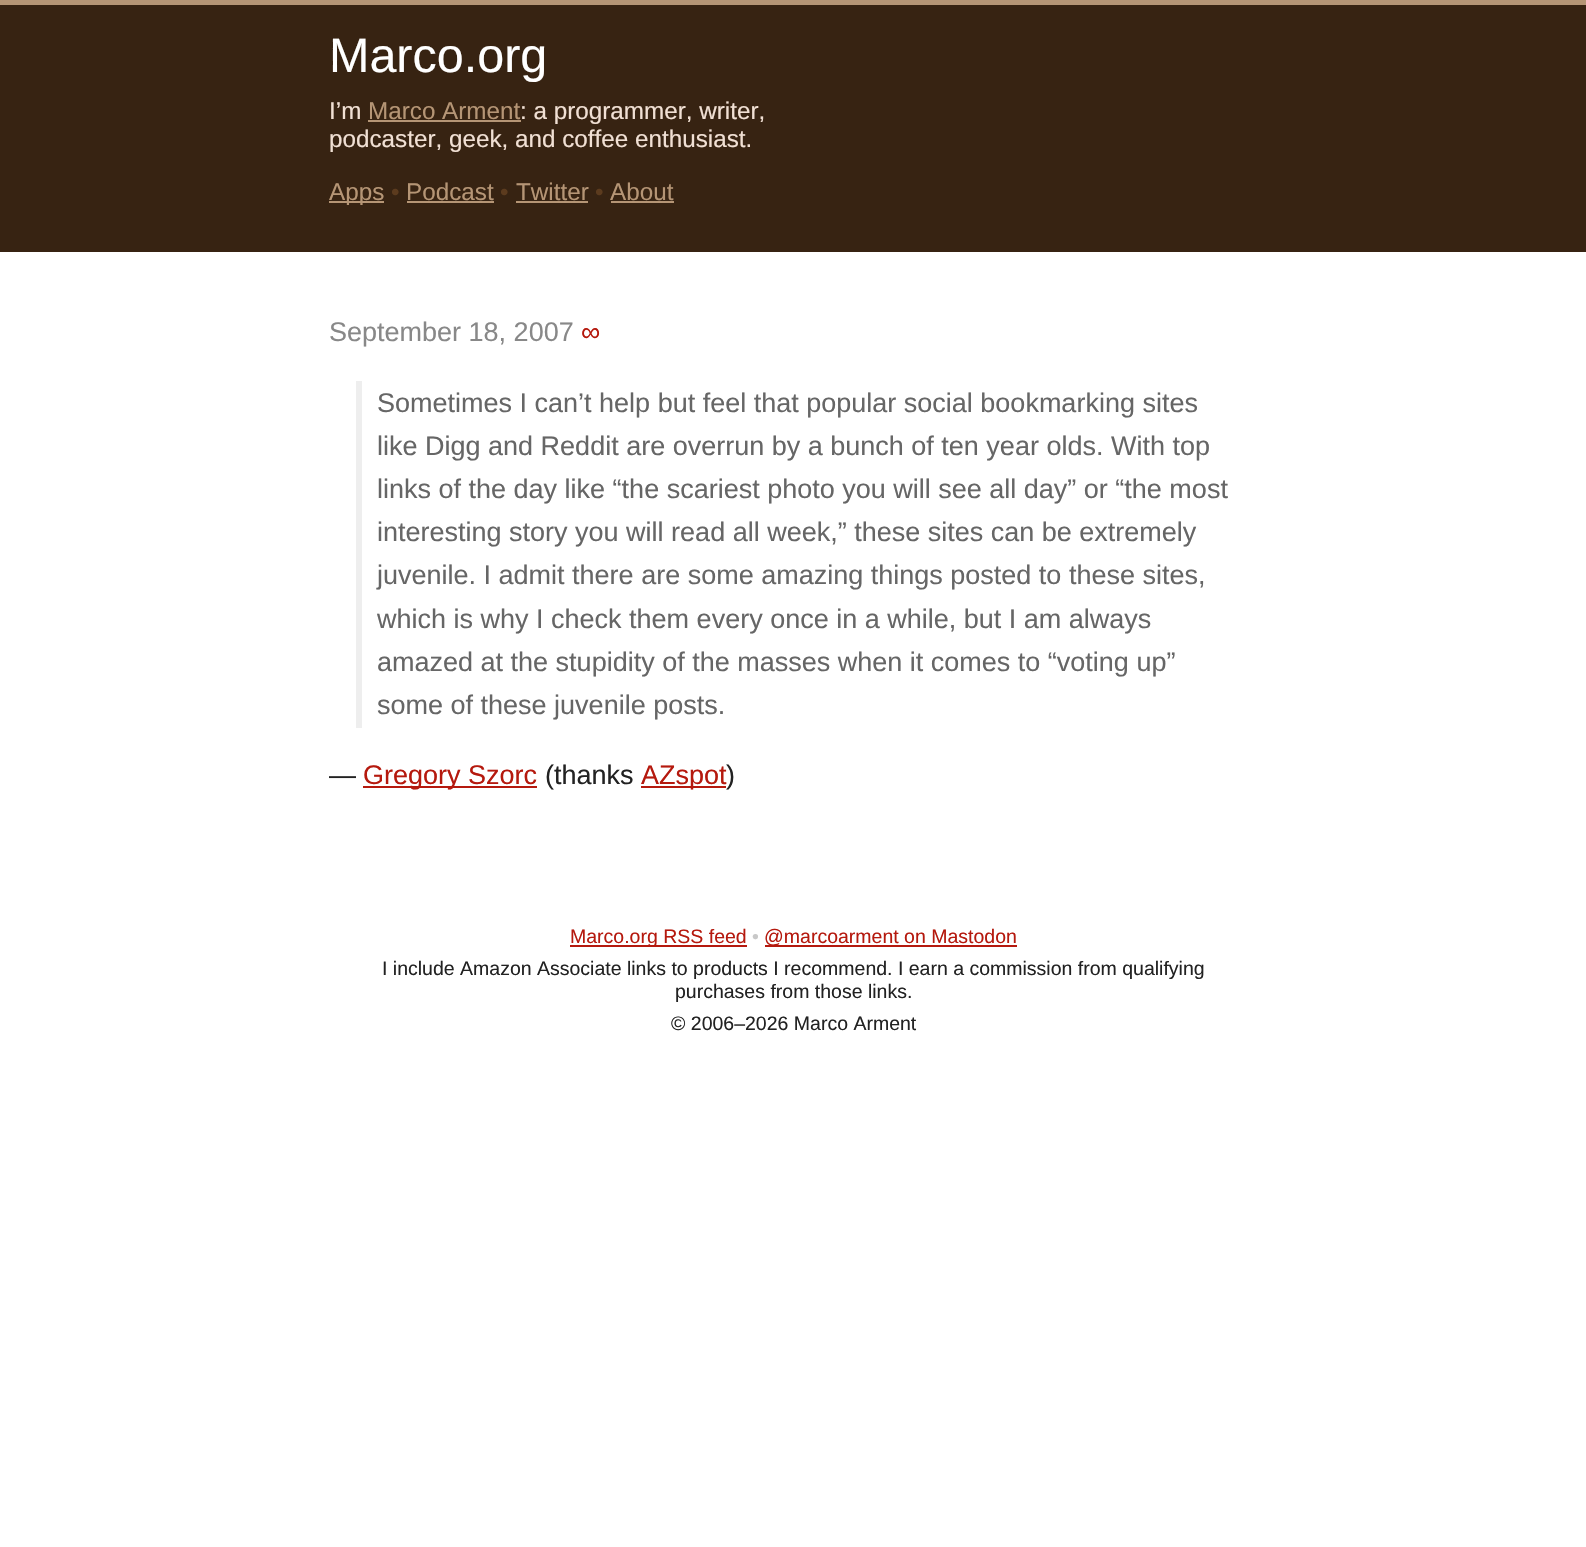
void draw(SkCanvas* canvas) {
    SkPaint paint;
    paint.setAntiAlias(true);
    auto face = [&](const char* family, int weight, float size, bool italic = false) {
        SkFontStyle style(weight, SkFontStyle::kNormal_Width,
            italic ? SkFontStyle::kItalic_Slant : SkFontStyle::kUpright_Slant);
        SkFont result(fontMgr->matchFamilyStyle(family, style), size);
        result.setSubpixel(true);
        return result;
    };
    auto write = [&](const char* s, float x, float y, const SkFont& font, SkColor color) {
        SkPaint ink(SkColor4f::FromColor(color));
        ink.setAntiAlias(true);
        canvas->drawString(s, x, y, font, ink);
    };
    auto block = [&](float x, float y, float w, float h, SkColor color) {
        SkPaint ink(SkColor4f::FromColor(color));
        ink.setAntiAlias(true);
        canvas->drawRect(SkRect::MakeXYWH(x, y, w, h), ink);
    };
    canvas->clear(SK_ColorWHITE);
    block(0, 0, 1586, 5, SkColorSetRGB(181, 149, 117));
    block(0, 5, 1586, 247, SkColorSetRGB(55, 35, 18));
    auto kFont1 = face("Liberation Sans", 400, 48.5f);
    write("Marco.org", 329, 72, kFont1, SK_ColorWHITE);
    auto kFont2 = face("Liberation Sans", 400, 24.25f);
    write("I’m", 329, 119, kFont2, SkColorSetRGB(241, 224, 212));
    write("Marco Arment", 368, 119, kFont2, SkColorSetRGB(181, 149, 117));
    block(368, 120, 153, 2, SkColorSetRGB(181, 149, 117));
    write(": a programmer, writer,", 520, 119, kFont2, SkColorSetRGB(241, 224, 212));
    write("podcaster, geek, and coffee enthusiast.", 329, 147, kFont2, SkColorSetRGB(241, 224, 212));
    block(329, 201, 55, 2, SkColorSetRGB(181, 149, 117));
    write("Apps", 329, 200, kFont2, SkColorSetRGB(181, 149, 117));
    write("•", 391, 200, kFont2, SkColorSetRGB(92, 59, 30));
    write("Podcast", 406, 200, kFont2, SkColorSetRGB(181, 149, 117));
    block(407, 201, 87, 2, SkColorSetRGB(181, 149, 117));
    write("•", 500, 200, kFont2, SkColorSetRGB(92, 59, 30));
    write("Twitter", 516, 200, kFont2, SkColorSetRGB(181, 149, 117));
    block(516, 201, 72, 2, SkColorSetRGB(181, 149, 117));
    write("•", 595, 200, kFont2, SkColorSetRGB(92, 59, 30));
    write("About", 610, 200, kFont2, SkColorSetRGB(181, 149, 117));
    block(611, 201, 63, 2, SkColorSetRGB(181, 149, 117));
    auto kFont3 = face("Liberation Sans", 400, 27);
    write("September 18, 2007", 329, 341, kFont3, SkColorSetRGB(136, 136, 136));
    write("∞", 581, 341, kFont3, SkColorSetRGB(181, 25, 14));
    block(356, 381, 6, 347, SkColorSetRGB(238, 238, 238));
    write("Sometimes I can’t help but feel that popular social bookmarking sites", 377, 412, kFont3, SkColorSetRGB(102, 102, 102));
    write("like Digg and Reddit are overrun by a bunch of ten year olds. With top", 377, 455, kFont3, SkColorSetRGB(102, 102, 102));
    write("links of the day like “the scariest photo you will see all day” or “the most", 377, 498, kFont3, SkColorSetRGB(102, 102, 102));
    write("interesting story you will read all week,” these sites can be extremely", 377, 541, kFont3, SkColorSetRGB(102, 102, 102));
    write("juvenile. I admit there are some amazing things posted to these sites,", 377, 584, kFont3, SkColorSetRGB(102, 102, 102));
    write("which is why I check them every once in a while, but I am always", 377, 628, kFont3, SkColorSetRGB(102, 102, 102));
    write("amazed at the stupidity of the masses when it comes to “voting up”", 377, 671, kFont3, SkColorSetRGB(102, 102, 102));
    write("some of these juvenile posts.", 377, 714, kFont3, SkColorSetRGB(102, 102, 102));
    write("—", 329, 784, kFont3, SkColorSetRGB(34, 34, 34));
    block(363, 786, 174, 2, SkColorSetRGB(181, 25, 14));
    write("Gregory Szorc", 363, 784, kFont3, SkColorSetRGB(181, 25, 14));
    write("(thanks", 545, 784, kFont3, SkColorSetRGB(34, 34, 34));
    block(641, 786, 85, 2, SkColorSetRGB(181, 25, 14));
    write("AZspot", 641, 784, kFont3, SkColorSetRGB(181, 25, 14));
    write(")", 726, 784, kFont3, SkColorSetRGB(34, 34, 34));
    block(570, 945, 177, 2, SkColorSetRGB(181, 25, 14));
    auto kFont4 = face("Liberation Sans", 400, 19.5f);
    write("Marco.org RSS feed", 570, 943, kFont4, SkColorSetRGB(181, 25, 14));
    write("•", 752, 943, kFont4, SkColorSetRGB(200, 200, 200));
    block(765, 945, 252, 2, SkColorSetRGB(181, 25, 14));
    write("@marcoarment on Mastodon", 764, 943, kFont4, SkColorSetRGB(181, 25, 14));
    write("I include Amazon Associate links to products I recommend. I earn a commission from qualifying", 382, 975, kFont4, SkColorSetRGB(34, 34, 34));
    write("purchases from those links.", 675, 998, kFont4, SkColorSetRGB(34, 34, 34));
    write("© 2006–2026 Marco Arment", 671, 1030, kFont4, SkColorSetRGB(34, 34, 34));
}
